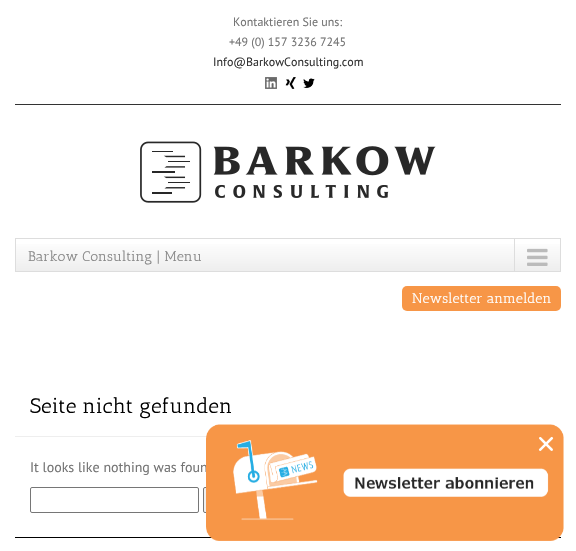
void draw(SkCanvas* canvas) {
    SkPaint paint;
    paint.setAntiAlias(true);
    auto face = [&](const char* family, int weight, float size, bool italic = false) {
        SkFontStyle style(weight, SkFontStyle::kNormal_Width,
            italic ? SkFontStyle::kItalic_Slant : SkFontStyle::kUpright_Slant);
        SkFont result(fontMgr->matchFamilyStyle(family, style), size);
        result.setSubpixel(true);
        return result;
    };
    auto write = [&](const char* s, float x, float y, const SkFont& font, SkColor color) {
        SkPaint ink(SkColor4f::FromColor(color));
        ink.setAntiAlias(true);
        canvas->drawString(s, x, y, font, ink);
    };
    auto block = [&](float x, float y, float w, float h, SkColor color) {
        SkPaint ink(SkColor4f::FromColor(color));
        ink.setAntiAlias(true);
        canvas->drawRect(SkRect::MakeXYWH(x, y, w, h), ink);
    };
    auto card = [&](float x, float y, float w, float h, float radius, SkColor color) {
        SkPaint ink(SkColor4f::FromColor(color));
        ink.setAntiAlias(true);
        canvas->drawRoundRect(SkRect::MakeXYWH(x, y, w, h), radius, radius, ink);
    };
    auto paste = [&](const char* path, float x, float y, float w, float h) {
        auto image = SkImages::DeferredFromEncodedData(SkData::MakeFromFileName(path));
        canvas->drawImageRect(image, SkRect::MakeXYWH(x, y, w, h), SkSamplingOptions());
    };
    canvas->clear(SK_ColorWHITE);
    block(15, 104, 546, 1, SkColorSetRGB(51, 51, 51));
    auto kFont1 = face("PT Sans", 400, 12);
    write("Kontaktieren Sie uns:", 233, 26, kFont1, SkColorSetRGB(116, 116, 116));
    write("+49 (0) 157 3236 7245", 229, 46, kFont1, SkColorSetRGB(116, 116, 116));
    write("Info@BarkowConsulting.com", 213, 66, kFont1, SkColorSetRGB(51, 51, 51));
    paste("pic1.png", 265, 77, 12, 12);
    paste("pic2.png", 285, 77, 11, 12);
    paste("pic3.png", 303, 78, 12, 11);
    paste("pic4.png", 140, 141, 296, 62);
    {
        const SkColor colors[] = {SK_ColorWHITE, SkColorSetRGB(238, 238, 238)};
        const float stops[] = {0, 1};
        const SkPoint ends[] = {{288, 239}, {288, 271}};
        paint.setShader(SkGradientShader::MakeLinear(ends, colors, stops, 2, SkTileMode::kClamp));
        paint.setAlpha(255);
    }
    canvas->drawRect(SkRect::MakeXYWH(16, 244, 544, 27), paint);
    paint.setStyle(SkPaint::kStroke_Style);
    paint.setStrokeWidth(1);
    paint.setShader(nullptr);
    paint.setColor(SkColorSetRGB(221, 221, 221));
    canvas->drawRect(SkRect::MakeXYWH(15.5f, 238.5f, 545, 33), paint);
    auto kFont2 = face("Antic Slab", 400, 14);
    write("Barkow Consulting | Menu", 28, 261, kFont2, SkColorSetRGB(136, 136, 136));
    block(514, 239, 1, 32, SkColorSetRGB(221, 221, 221));
    paste("pic5.png", 527, 248, 21, 18);
    card(402, 286, 159, 25, 5, SkColorSetRGB(247, 150, 71));
    write("Newsletter anmelden", 412, 303, kFont2, SK_ColorWHITE);
    block(15, 436, 192, 1, SkColorSetRGB(238, 238, 238));
    auto kFont3 = face("Antic Slab", 400, 21);
    write("Seite nicht gefunden", 30, 413, kFont3, SK_ColorBLACK);
    auto kFont4 = face("PT Sans", 400, 14);
    write("It looks like nothing was foun", 30, 472, kFont4, SkColorSetRGB(116, 116, 116));
    paint.setColor(SkColorSetRGB(118, 118, 118));
    canvas->drawRoundRect(SkRect::MakeXYWH(30.5f, 487.5f, 168, 25), 1.5f, 1.5f, paint);
    paint.setStyle(SkPaint::kFill_Style);
    paint.setColor(SkColorSetRGB(239, 239, 239));
    canvas->drawRoundRect(SkRect::MakeXYWH(203.5f, 487.5f, 58, 25), 1.5f, 1.5f, paint);
    paint.setStyle(SkPaint::kStroke_Style);
    paint.setColor(SkColorSetRGB(118, 118, 118));
    canvas->drawRoundRect(SkRect::MakeXYWH(203.5f, 487.5f, 58, 25), 1.5f, 1.5f, paint);
    block(15, 537, 546, 1, SK_ColorBLACK);
    paste("pic6.png", 206, 424, 358, 117);
    paste("pic7.png", 538, 436, 16, 15);
}
